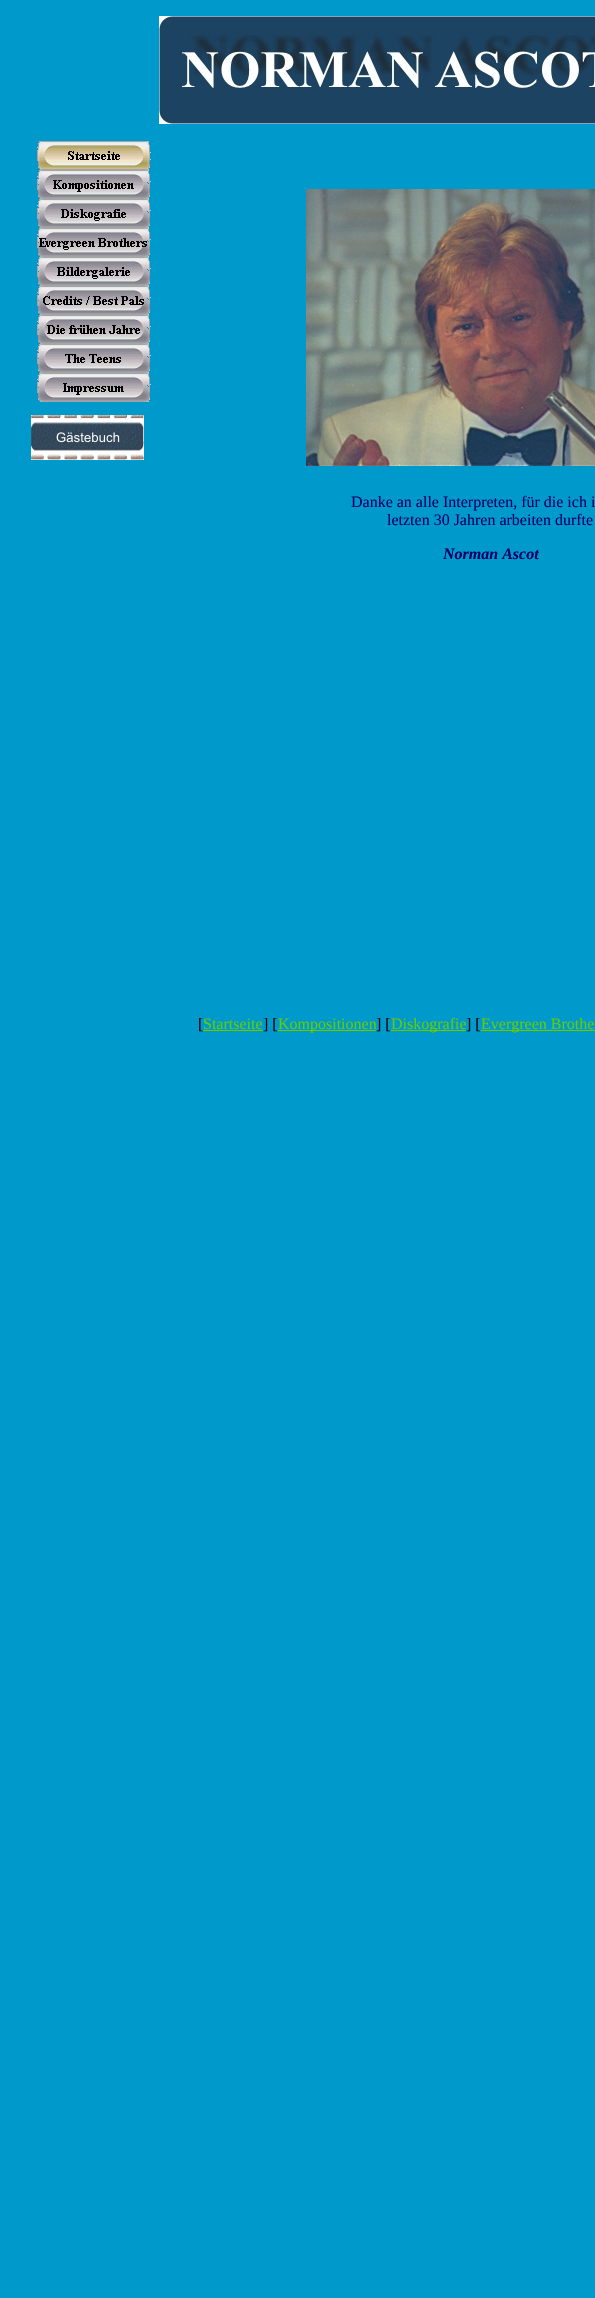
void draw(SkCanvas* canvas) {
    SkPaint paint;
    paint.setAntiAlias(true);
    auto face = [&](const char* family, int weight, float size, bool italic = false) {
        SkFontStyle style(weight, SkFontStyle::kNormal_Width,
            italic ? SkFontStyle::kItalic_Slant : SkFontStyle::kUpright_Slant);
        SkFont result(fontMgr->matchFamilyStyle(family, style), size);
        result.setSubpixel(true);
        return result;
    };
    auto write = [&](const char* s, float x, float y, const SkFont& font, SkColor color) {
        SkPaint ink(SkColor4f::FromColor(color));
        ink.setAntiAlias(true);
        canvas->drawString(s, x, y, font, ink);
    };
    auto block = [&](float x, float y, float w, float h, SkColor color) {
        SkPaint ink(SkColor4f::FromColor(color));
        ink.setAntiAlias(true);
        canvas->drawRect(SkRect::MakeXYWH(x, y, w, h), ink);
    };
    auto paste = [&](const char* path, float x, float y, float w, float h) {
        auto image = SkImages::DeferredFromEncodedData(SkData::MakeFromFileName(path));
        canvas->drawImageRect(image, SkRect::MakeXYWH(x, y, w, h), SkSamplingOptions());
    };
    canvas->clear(SkColorSetRGB(0, 153, 204));
    paste("pic1.png", 159, 16, 436, 108);
    paste("pic2.png", 37, 141, 114, 29);
    paste("pic3.png", 37, 170, 114, 29);
    paste("pic4.png", 37, 199, 114, 29);
    paste("pic5.png", 37, 228, 114, 29);
    paste("pic6.png", 37, 257, 114, 29);
    paste("pic7.png", 37, 286, 114, 29);
    paste("pic8.png", 37, 315, 114, 29);
    paste("pic9.png", 37, 344, 114, 29);
    paste("pic10.png", 37, 373, 114, 29);
    paste("pic11.png", 306, 189, 289, 277);
    paste("pic12.png", 31, 415, 113, 45);
    auto kFont1 = face("Liberation Serif", 400, 16);
    write("Danke an alle Interpreten, für die ich i", 351, 507, kFont1, SkColorSetRGB(0, 0, 102));
    write("letzten 30 Jahren arbeiten durfte", 387, 525, kFont1, SkColorSetRGB(0, 0, 102));
    auto kFont2 = face("Liberation Serif", 700, 16, true);
    write("Norman Ascot", 443, 559, kFont2, SkColorSetRGB(0, 0, 102));
    write("[", 198, 1029, kFont1, SK_ColorBLACK);
    write("Startseite", 203, 1029, kFont1, SkColorSetRGB(102, 204, 0));
    block(203, 1030, 60, 1, SkColorSetRGB(102, 204, 0));
    write("] [", 263, 1029, kFont1, SK_ColorBLACK);
    block(278, 1030, 98, 1, SkColorSetRGB(102, 204, 0));
    write("Kompositionen", 278, 1029, kFont1, SkColorSetRGB(102, 204, 0));
    write("] [", 376, 1029, kFont1, SK_ColorBLACK);
    block(391, 1030, 75, 1, SkColorSetRGB(102, 204, 0));
    write("Diskografie", 391, 1029, kFont1, SkColorSetRGB(102, 204, 0));
    write("] [", 466, 1029, kFont1, SK_ColorBLACK);
    block(481, 1030, 114, 1, SkColorSetRGB(102, 204, 0));
    write("Evergreen Brothe", 481, 1029, kFont1, SkColorSetRGB(102, 204, 0));
}
